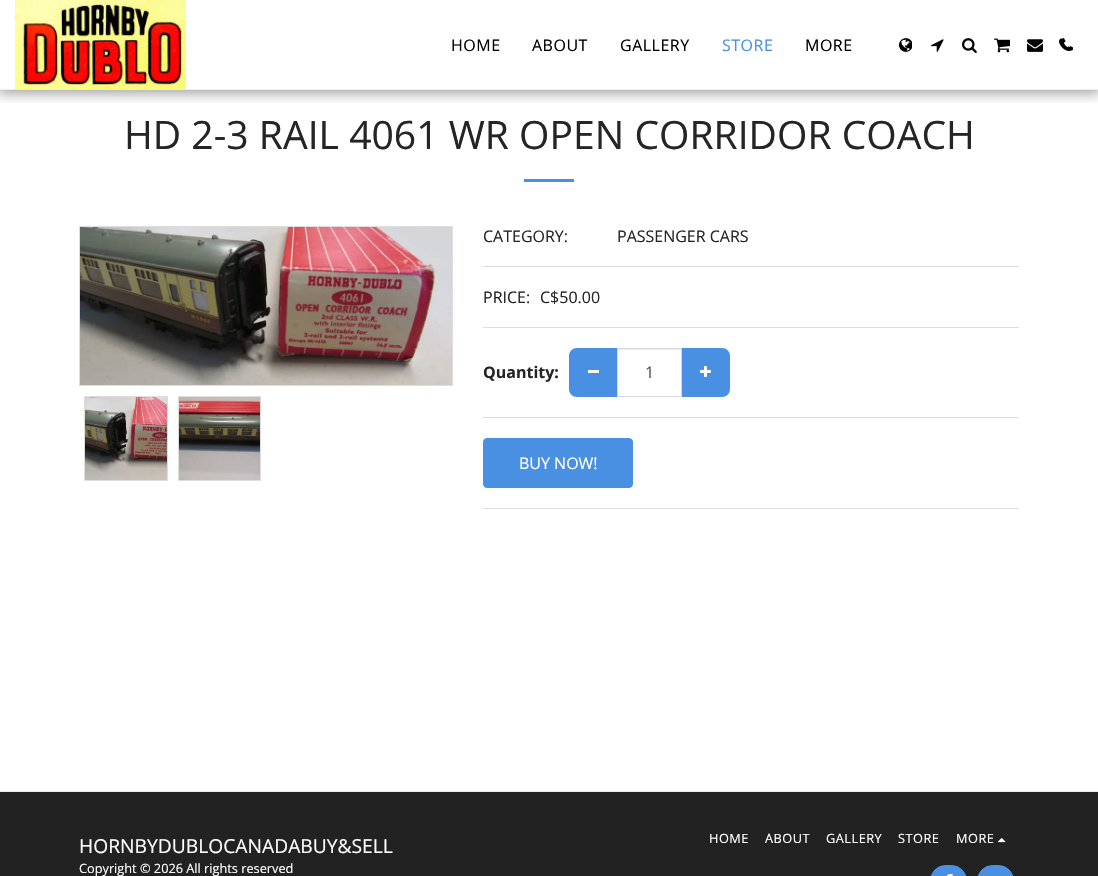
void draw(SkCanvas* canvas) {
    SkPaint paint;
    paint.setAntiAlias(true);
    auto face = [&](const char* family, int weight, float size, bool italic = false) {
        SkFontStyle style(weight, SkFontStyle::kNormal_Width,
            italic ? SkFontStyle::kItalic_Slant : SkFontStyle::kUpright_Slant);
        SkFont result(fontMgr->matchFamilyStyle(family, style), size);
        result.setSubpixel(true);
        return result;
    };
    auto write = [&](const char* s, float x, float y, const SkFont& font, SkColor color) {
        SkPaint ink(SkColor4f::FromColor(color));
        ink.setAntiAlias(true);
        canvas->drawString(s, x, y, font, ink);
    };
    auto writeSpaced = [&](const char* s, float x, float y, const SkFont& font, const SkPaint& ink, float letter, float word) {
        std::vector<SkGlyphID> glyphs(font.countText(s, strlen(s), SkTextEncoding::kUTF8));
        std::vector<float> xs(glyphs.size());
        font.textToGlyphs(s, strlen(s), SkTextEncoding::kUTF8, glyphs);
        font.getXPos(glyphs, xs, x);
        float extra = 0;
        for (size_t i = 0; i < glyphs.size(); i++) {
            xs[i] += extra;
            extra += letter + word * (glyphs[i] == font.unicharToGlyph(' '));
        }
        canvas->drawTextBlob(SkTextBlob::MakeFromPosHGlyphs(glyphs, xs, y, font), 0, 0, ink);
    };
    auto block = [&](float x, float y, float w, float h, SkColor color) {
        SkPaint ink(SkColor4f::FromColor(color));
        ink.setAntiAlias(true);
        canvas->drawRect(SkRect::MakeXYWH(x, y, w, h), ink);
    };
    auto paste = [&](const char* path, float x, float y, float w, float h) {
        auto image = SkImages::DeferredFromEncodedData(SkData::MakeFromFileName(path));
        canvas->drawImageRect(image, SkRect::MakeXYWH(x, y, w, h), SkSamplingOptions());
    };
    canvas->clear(SK_ColorWHITE);
    canvas->save();
    canvas->clipRect(SkRect::MakeXYWH(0, 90, 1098, 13));
    paint.setColor(SkColorSetARGB(89, 0, 0, 0));
    paint.setMaskFilter(SkMaskFilter::MakeBlur(kNormal_SkBlurStyle, 6));
    canvas->drawRect(SkRect::MakeXYWH(-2, 0, 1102, 94), paint);
    paint.setMaskFilter(nullptr);
    canvas->restore();
    block(0, 89, 1098, 1, SkColorSetRGB(235, 235, 235));
    paste("pic1.png", 15, 0, 171, 89);
    auto kFont1 = face("Open Sans", 400, 16);
    paint.setColor(SK_ColorBLACK);
    writeSpaced("HOME", 451, 51, kFont1, paint, 0.5f, 0);
    writeSpaced("ABOUT", 532, 51, kFont1, paint, 0.5f, 0);
    writeSpaced("GALLERY", 620, 51, kFont1, paint, 0.5f, 0);
    paint.setColor(SkColorSetRGB(74, 144, 226));
    writeSpaced("STORE", 722, 51, kFont1, paint, 0.5f, 0);
    paint.setColor(SK_ColorBLACK);
    writeSpaced("MORE", 805, 51, kFont1, paint, 0.5f, 0);
    paste("pic2.png", 899, 38, 13, 14);
    paste("pic3.png", 931, 39, 13, 13);
    paste("pic4.png", 962, 38, 15, 15);
    paste("pic5.png", 994, 38, 16, 15);
    paste("pic6.png", 1027, 39, 16, 13);
    paste("pic7.png", 1061, 38, 12, 13);
    paste("pic8.png", 1059, 38, 12, 13);
    auto kFont2 = face("Open Sans", 400, 39.1f);
    write("HD 2-3 RAIL 4061 WR OPEN CORRIDOR COACH", 124, 149, kFont2, SkColorSetRGB(37, 37, 37));
    block(524, 179, 50, 3, SkColorSetRGB(74, 144, 226));
    paint.setStyle(SkPaint::kStroke_Style);
    paint.setStrokeWidth(1);
    paint.setColor(SkColorSetRGB(221, 221, 221));
    canvas->drawRect(SkRect::MakeXYWH(79.5f, 226.5f, 373, 159), paint);
    paste("pic9.png", 80, 227, 372, 158);
    paste("pic10.png", 85, 397, 82, 83);
    canvas->drawRect(SkRect::MakeXYWH(84.5f, 396.5f, 83, 84), paint);
    paste("pic11.png", 179, 397, 81, 83);
    canvas->drawRect(SkRect::MakeXYWH(178.5f, 396.5f, 82, 84), paint);
    write("CATEGORY:", 483, 242, kFont1, SkColorSetRGB(37, 37, 37));
    write("PASSENGER CARS", 617, 242, kFont1, SkColorSetRGB(37, 37, 37));
    block(483, 266, 536, 1, SkColorSetRGB(221, 221, 221));
    write("PRICE:", 483, 303, kFont1, SkColorSetRGB(37, 37, 37));
    write("C$50.00", 540, 303, kFont1, SkColorSetRGB(37, 37, 37));
    block(483, 327, 536, 1, SkColorSetRGB(221, 221, 221));
    auto kFont3 = face("Open Sans", 700, 16);
    write("Quantity:", 483, 378, kFont3, SkColorSetRGB(37, 37, 37));
    paint.setStyle(SkPaint::kFill_Style);
    paint.setColor(SkColorSetRGB(74, 144, 226));
    canvas->drawPath(SkPathBuilder().moveTo(577, 348).lineTo(618, 348).lineTo(618, 397).lineTo(577, 397).cubicTo(572.5f, 397, 569, 393.5f, 569, 389).lineTo(569, 356).cubicTo(569, 351.5f, 572.5f, 348, 577, 348).close().detach(), paint);
    block(588, 370, 11, 3, SK_ColorWHITE);
    block(618, 349, 63, 1, SkColorSetRGB(236, 236, 236));
    canvas->drawPath(SkPathBuilder().moveTo(681, 348).lineTo(722, 348).cubicTo(726.5f, 348, 730, 351.5f, 730, 356).lineTo(730, 389).cubicTo(730, 393.5f, 726.5f, 397, 722, 397).lineTo(681, 397).close().detach(), paint);
    paint.setStyle(SkPaint::kStroke_Style);
    paint.setColor(SkColorSetRGB(212, 215, 229));
    canvas->drawRect(SkRect::MakeXYWH(617.5f, 348.5f, 64, 48), paint);
    write("1", 645, 378, kFont1, SkColorSetRGB(85, 85, 85));
    paste("pic12.png", 700, 366, 11, 11);
    block(483, 417, 536, 1, SkColorSetRGB(221, 221, 221));
    paint.setStyle(SkPaint::kFill_Style);
    paint.setColor(SkColorSetRGB(74, 144, 226));
    canvas->drawRoundRect(SkRect::MakeXYWH(483.5f, 438.5f, 149, 49), 3.5f, 3.5f, paint);
    paint.setStyle(SkPaint::kStroke_Style);
    canvas->drawRoundRect(SkRect::MakeXYWH(483.5f, 438.5f, 149, 49), 3.5f, 3.5f, paint);
    write("BUY NOW!", 519, 469, kFont1, SK_ColorWHITE);
    block(483, 508, 536, 1, SkColorSetRGB(221, 221, 221));
    block(0, 792, 1098, 84, SkColorSetRGB(34, 34, 34));
    block(0, 791, 1098, 1, SkColorSetRGB(235, 235, 235));
    auto kFont4 = face("Open Sans", 400, 19.25f);
    write("HORNBYDUBLOCANADABUY&SELL", 79, 853, kFont4, SK_ColorWHITE);
    auto kFont5 = face("Open Sans", 400, 12.75f);
    write("Copyright © 2026 All rights reserved", 79, 873, kFont5, SK_ColorWHITE);
    paint.setStyle(SkPaint::kFill_Style);
    paint.setColor(SK_ColorWHITE);
    writeSpaced("HOME", 709, 843, kFont5, paint, 0.5f, 0);
    writeSpaced("ABOUT", 765, 843, kFont5, paint, 0.5f, 0);
    writeSpaced("GALLERY", 826, 843, kFont5, paint, 0.5f, 0);
    writeSpaced("STORE", 898, 843, kFont5, paint, 0.5f, 0);
    writeSpaced("MORE", 956, 843, kFont5, paint, 0.5f, 0);
    paste("pic13.png", 998, 838, 8, 5);
    paint.setColor(SkColorSetRGB(74, 144, 226));
    canvas->drawRoundRect(SkRect::MakeXYWH(930.5f, 865.5f, 36, 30), 18, 18, paint);
    paint.setStyle(SkPaint::kStroke_Style);
    canvas->drawRoundRect(SkRect::MakeXYWH(930.5f, 865.5f, 36, 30), 18, 18, paint);
    paste("pic14.png", 947, 874, 6, 2);
    paint.setStyle(SkPaint::kFill_Style);
    canvas->drawRoundRect(SkRect::MakeXYWH(977.5f, 865.5f, 36, 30), 18, 18, paint);
    paint.setStyle(SkPaint::kStroke_Style);
    canvas->drawRoundRect(SkRect::MakeXYWH(977.5f, 865.5f, 36, 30), 18, 18, paint);
}
